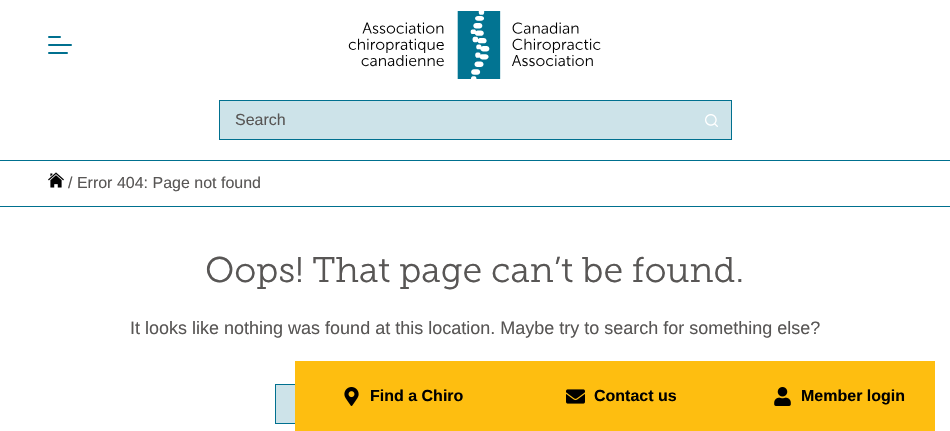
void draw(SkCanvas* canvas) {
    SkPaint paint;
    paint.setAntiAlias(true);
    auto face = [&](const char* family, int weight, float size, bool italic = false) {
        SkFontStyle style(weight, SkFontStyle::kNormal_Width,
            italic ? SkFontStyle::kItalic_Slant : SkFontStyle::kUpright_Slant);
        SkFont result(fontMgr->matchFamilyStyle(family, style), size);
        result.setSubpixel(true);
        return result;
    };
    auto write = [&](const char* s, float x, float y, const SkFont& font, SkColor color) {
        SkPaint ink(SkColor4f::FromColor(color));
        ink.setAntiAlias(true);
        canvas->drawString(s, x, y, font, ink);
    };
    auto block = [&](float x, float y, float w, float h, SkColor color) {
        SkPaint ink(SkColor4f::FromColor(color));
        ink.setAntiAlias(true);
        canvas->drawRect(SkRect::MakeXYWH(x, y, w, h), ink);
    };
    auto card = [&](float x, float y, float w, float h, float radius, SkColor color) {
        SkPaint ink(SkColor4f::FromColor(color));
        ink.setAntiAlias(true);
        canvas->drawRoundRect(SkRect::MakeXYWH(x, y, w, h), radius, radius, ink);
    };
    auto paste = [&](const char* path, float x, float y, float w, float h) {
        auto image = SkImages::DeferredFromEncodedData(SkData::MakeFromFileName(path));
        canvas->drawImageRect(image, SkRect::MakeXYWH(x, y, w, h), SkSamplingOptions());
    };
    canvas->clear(SK_ColorWHITE);
    card(48, 36, 13, 2, 1, SkColorSetRGB(0, 112, 143));
    card(48, 44, 24, 2, 1, SkColorSetRGB(0, 112, 143));
    card(48, 52, 20, 2, 1, SkColorSetRGB(0, 112, 143));
    paste("pic1.png", 348, 11, 253, 68);
    block(220, 101, 511, 38, SkColorSetRGB(205, 227, 233));
    block(219, 100, 513, 1, SkColorSetRGB(0, 112, 143));
    block(219, 139, 473, 1, SkColorSetRGB(0, 112, 143));
    block(219, 100, 1, 40, SkColorSetRGB(0, 112, 143));
    auto kFont1 = face("Liberation Sans", 400, 16);
    write("Search", 235, 125, kFont1, SkColorSetRGB(88, 86, 85));
    block(731, 100, 1, 40, SkColorSetRGB(0, 112, 143));
    block(692, 139, 40, 1, SkColorSetRGB(0, 112, 143));
    paste("pic2.png", 705, 114, 13, 13);
    block(0, 160, 950, 1, SkColorSetRGB(0, 112, 143));
    block(0, 206, 950, 1, SkColorSetRGB(0, 112, 143));
    paste("pic3.png", 48, 172, 16, 16);
    write("/ Error 404: Page not found", 68, 188, kFont1, SkColorSetRGB(88, 86, 85));
    auto kFont2 = face("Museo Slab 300", 300, 35.5f);
    write("Oops! That page can’t be found.", 205, 282, kFont2, SkColorSetRGB(88, 86, 85));
    auto kFont3 = face("Liberation Sans", 400, 18);
    write("It looks like nothing was found at this location. Maybe try to search for something else?", 130, 334, kFont3, SkColorSetRGB(88, 86, 85));
    block(276, 385, 19, 38, SkColorSetRGB(205, 227, 233));
    block(275, 384, 20, 1, SkColorSetRGB(0, 112, 143));
    block(275, 423, 20, 1, SkColorSetRGB(0, 112, 143));
    block(275, 384, 1, 40, SkColorSetRGB(0, 112, 143));
    block(295, 361, 640, 70, SkColorSetRGB(254, 190, 16));
    paste("pic4.png", 344, 387, 15, 19);
    auto kFont4 = face("Liberation Sans", 700, 16);
    write("Find a Chiro", 370, 401, kFont4, SK_ColorBLACK);
    paste("pic5.png", 566, 389, 19, 15);
    write("Contact us", 594, 401, kFont4, SK_ColorBLACK);
    paste("pic6.png", 774, 387, 17, 19);
    write("Member login", 801, 401, kFont4, SK_ColorBLACK);
}
